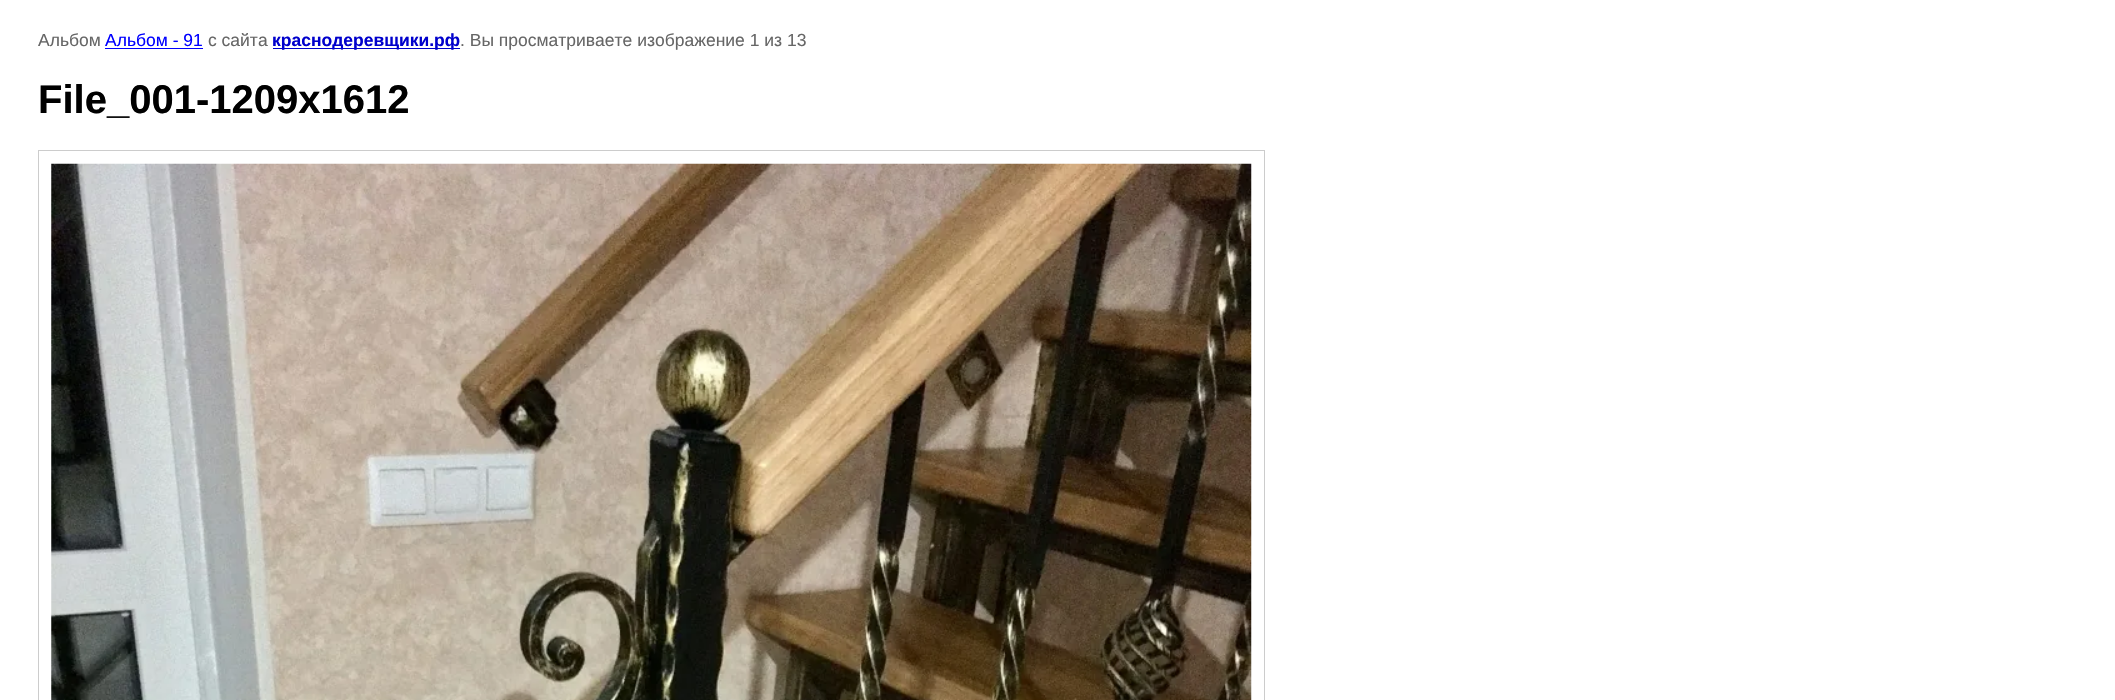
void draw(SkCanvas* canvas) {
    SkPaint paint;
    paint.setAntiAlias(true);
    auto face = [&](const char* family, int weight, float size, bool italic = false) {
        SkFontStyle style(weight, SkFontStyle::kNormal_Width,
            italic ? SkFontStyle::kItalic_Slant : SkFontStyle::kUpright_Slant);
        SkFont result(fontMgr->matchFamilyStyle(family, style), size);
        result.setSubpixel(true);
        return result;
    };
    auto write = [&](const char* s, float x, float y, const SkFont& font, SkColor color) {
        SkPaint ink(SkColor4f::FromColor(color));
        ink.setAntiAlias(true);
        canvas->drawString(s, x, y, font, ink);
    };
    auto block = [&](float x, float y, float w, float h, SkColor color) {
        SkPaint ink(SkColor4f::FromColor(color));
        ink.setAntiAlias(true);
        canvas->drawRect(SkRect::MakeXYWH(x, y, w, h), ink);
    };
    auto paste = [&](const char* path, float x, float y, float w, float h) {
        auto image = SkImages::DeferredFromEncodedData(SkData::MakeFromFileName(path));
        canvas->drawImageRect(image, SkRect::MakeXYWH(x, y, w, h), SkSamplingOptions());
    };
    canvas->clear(SK_ColorWHITE);
    auto kFont1 = face("Liberation Sans", 400, 17.5f);
    write("Альбом", 38, 46, kFont1, SkColorSetRGB(102, 102, 102));
    write("Альбом - 91", 105, 46, kFont1, SkColorSetRGB(0, 0, 255));
    block(105, 48, 98, 1, SkColorSetRGB(0, 0, 255));
    write("с сайта", 208, 46, kFont1, SkColorSetRGB(102, 102, 102));
    block(273, 48, 187, 1, SkColorSetRGB(0, 0, 204));
    auto kFont2 = face("Liberation Sans", 700, 17.5f);
    write("краснодеревщики.рф", 272, 46, kFont2, SkColorSetRGB(0, 0, 204));
    write(". Вы просматриваете изображение 1 из 13", 460, 46, kFont1, SkColorSetRGB(102, 102, 102));
    auto kFont3 = face("Liberation Sans", 700, 40);
    write("File_001-1209x1612", 38, 113, kFont3, SK_ColorBLACK);
    paint.setStyle(SkPaint::kStroke_Style);
    paint.setStrokeWidth(1);
    paint.setColor(SkColorSetRGB(204, 204, 204));
    canvas->drawRect(SkRect::MakeXYWH(38.5f, 150.5f, 1226, 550), paint);
    paste("pic1.png", 51, 163, 1201, 537);
}
